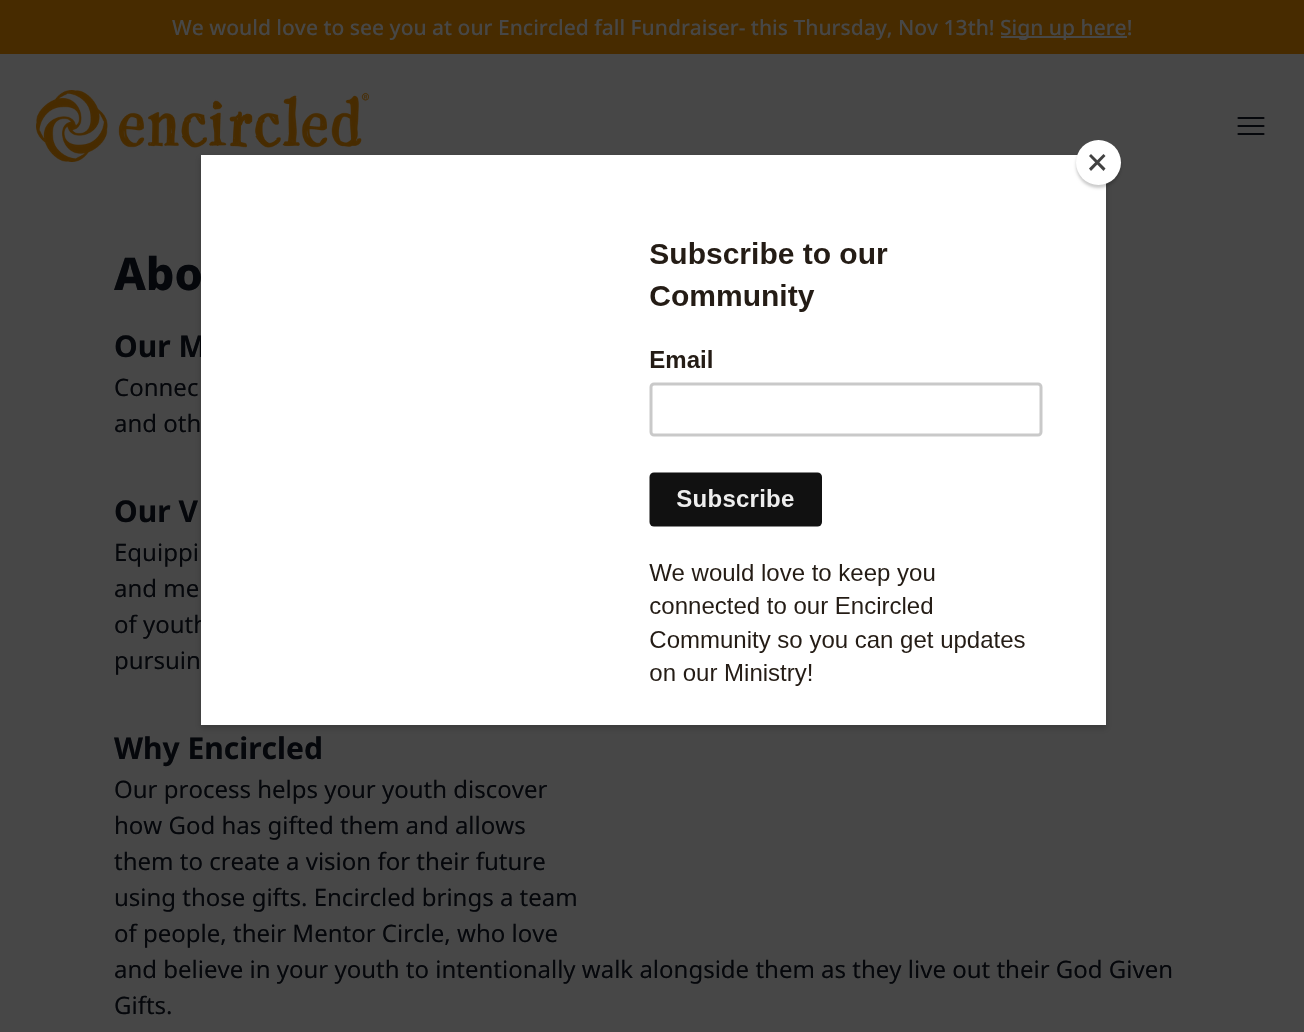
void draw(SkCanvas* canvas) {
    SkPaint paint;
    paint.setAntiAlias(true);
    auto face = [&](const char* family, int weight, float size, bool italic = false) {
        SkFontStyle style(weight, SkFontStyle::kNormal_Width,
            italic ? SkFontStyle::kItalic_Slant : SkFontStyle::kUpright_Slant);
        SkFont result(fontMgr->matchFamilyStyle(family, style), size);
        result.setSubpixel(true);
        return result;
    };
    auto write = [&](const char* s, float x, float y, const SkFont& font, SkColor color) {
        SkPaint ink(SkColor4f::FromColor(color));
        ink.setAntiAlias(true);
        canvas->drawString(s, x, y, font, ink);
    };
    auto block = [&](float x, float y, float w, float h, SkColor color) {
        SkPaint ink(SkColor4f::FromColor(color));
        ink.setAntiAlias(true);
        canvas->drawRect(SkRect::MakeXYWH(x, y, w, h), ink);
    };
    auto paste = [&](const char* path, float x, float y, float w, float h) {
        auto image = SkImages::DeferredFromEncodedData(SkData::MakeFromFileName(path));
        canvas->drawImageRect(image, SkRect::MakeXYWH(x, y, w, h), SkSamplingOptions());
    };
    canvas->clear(SkColorSetRGB(71, 71, 71));
    block(0, 0, 1304, 54, SkColorSetRGB(71, 43, 0));
    auto kFont1 = face("Noto Sans", 500, 21);
    write("We would love to see you at our Encircled fall Fundraiser- this Thursday, Nov 13th!", 172, 35, kFont1, SkColorSetRGB(71, 71, 71));
    block(1001, 36, 126, 2, SkColorSetRGB(71, 71, 71));
    write("Sign up here!", 1000, 35, kFont1, SkColorSetRGB(71, 71, 71));
    paste("pic1.png", 36, 90, 333, 72);
    paint.setStyle(SkPaint::kStroke_Style);
    paint.setStrokeWidth(2.2f);
    paint.setStrokeCap(SkPaint::kRound_Cap);
    paint.setStrokeJoin(SkPaint::kRound_Join);
    paint.setColor(SkColorSetRGB(5, 7, 11));
    canvas->drawPath(SkPathBuilder().moveTo(1238.5f, 118).lineTo(1263.5f, 118).moveTo(1238.5f, 126).lineTo(1263.5f, 126).moveTo(1238.5f, 134).lineTo(1263.5f, 134).detach(), paint);
    auto kFont2 = face("Noto Sans", 800, 45);
    write("Abo", 114, 290, kFont2, SkColorSetRGB(5, 7, 11));
    auto kFont3 = face("Noto Sans", 700, 30);
    write("Our M", 114, 357, kFont3, SkColorSetRGB(5, 7, 11));
    auto kFont4 = face("Noto Sans", 400, 24);
    write("Connec", 114, 396, kFont4, SkColorSetRGB(5, 7, 11));
    write("and oth", 114, 432, kFont4, SkColorSetRGB(5, 7, 11));
    write("Our V", 114, 522, kFont3, SkColorSetRGB(5, 7, 11));
    write("Equippi", 114, 561, kFont4, SkColorSetRGB(5, 7, 11));
    write("and me", 114, 597, kFont4, SkColorSetRGB(5, 7, 11));
    write("of youth", 114, 633, kFont4, SkColorSetRGB(5, 7, 11));
    write("pursuin", 114, 669, kFont4, SkColorSetRGB(5, 7, 11));
    write("Why Encircled", 114, 759, kFont3, SkColorSetRGB(5, 7, 11));
    write("Our process helps your youth discover", 114, 798, kFont4, SkColorSetRGB(5, 7, 11));
    write("how God has gifted them and allows", 114, 834, kFont4, SkColorSetRGB(5, 7, 11));
    write("them to create a vision for their future", 114, 870, kFont4, SkColorSetRGB(5, 7, 11));
    write("using those gifts. Encircled brings a team", 114, 906, kFont4, SkColorSetRGB(5, 7, 11));
    write("of people, their Mentor Circle, who love", 114, 942, kFont4, SkColorSetRGB(5, 7, 11));
    write("and believe in your youth to intentionally walk alongside them as they live out their God Given", 114, 978, kFont4, SkColorSetRGB(5, 7, 11));
    write("Gifts.", 114, 1014, kFont4, SkColorSetRGB(5, 7, 11));
    paint.setStyle(SkPaint::kFill_Style);
    paint.setColor(SkColorSetARGB(51, 0, 0, 0));
    paint.setMaskFilter(SkMaskFilter::MakeBlur(kNormal_SkBlurStyle, 3));
    canvas->drawRect(SkRect::MakeXYWH(201, 158, 905, 570), paint);
    paint.setMaskFilter(nullptr);
    paste("pic2.png", 201, 155, 905, 570);
    paint.setMaskFilter(SkMaskFilter::MakeBlur(kNormal_SkBlurStyle, 1.5f));
    canvas->drawRoundRect(SkRect::MakeXYWH(1076, 143, 45, 45), 22.5f, 22.5f, paint);
    paint.setMaskFilter(nullptr);
    paint.setColor(SK_ColorWHITE);
    canvas->drawCircle(1098.5f, 162.5f, 22.5f, paint);
    paint.setColor(SkColorSetRGB(65, 65, 65));
    canvas->drawPath(SkPathBuilder().moveTo(1103.5f, 154).lineTo(1105.5f, 156).lineTo(1091, 171).lineTo(1089, 168.5f).close().detach(), paint);
    canvas->drawPath(SkPathBuilder().moveTo(1089, 156).lineTo(1091, 154).lineTo(1105.5f, 168.5f).lineTo(1103.5f, 171).close().detach(), paint);
}
